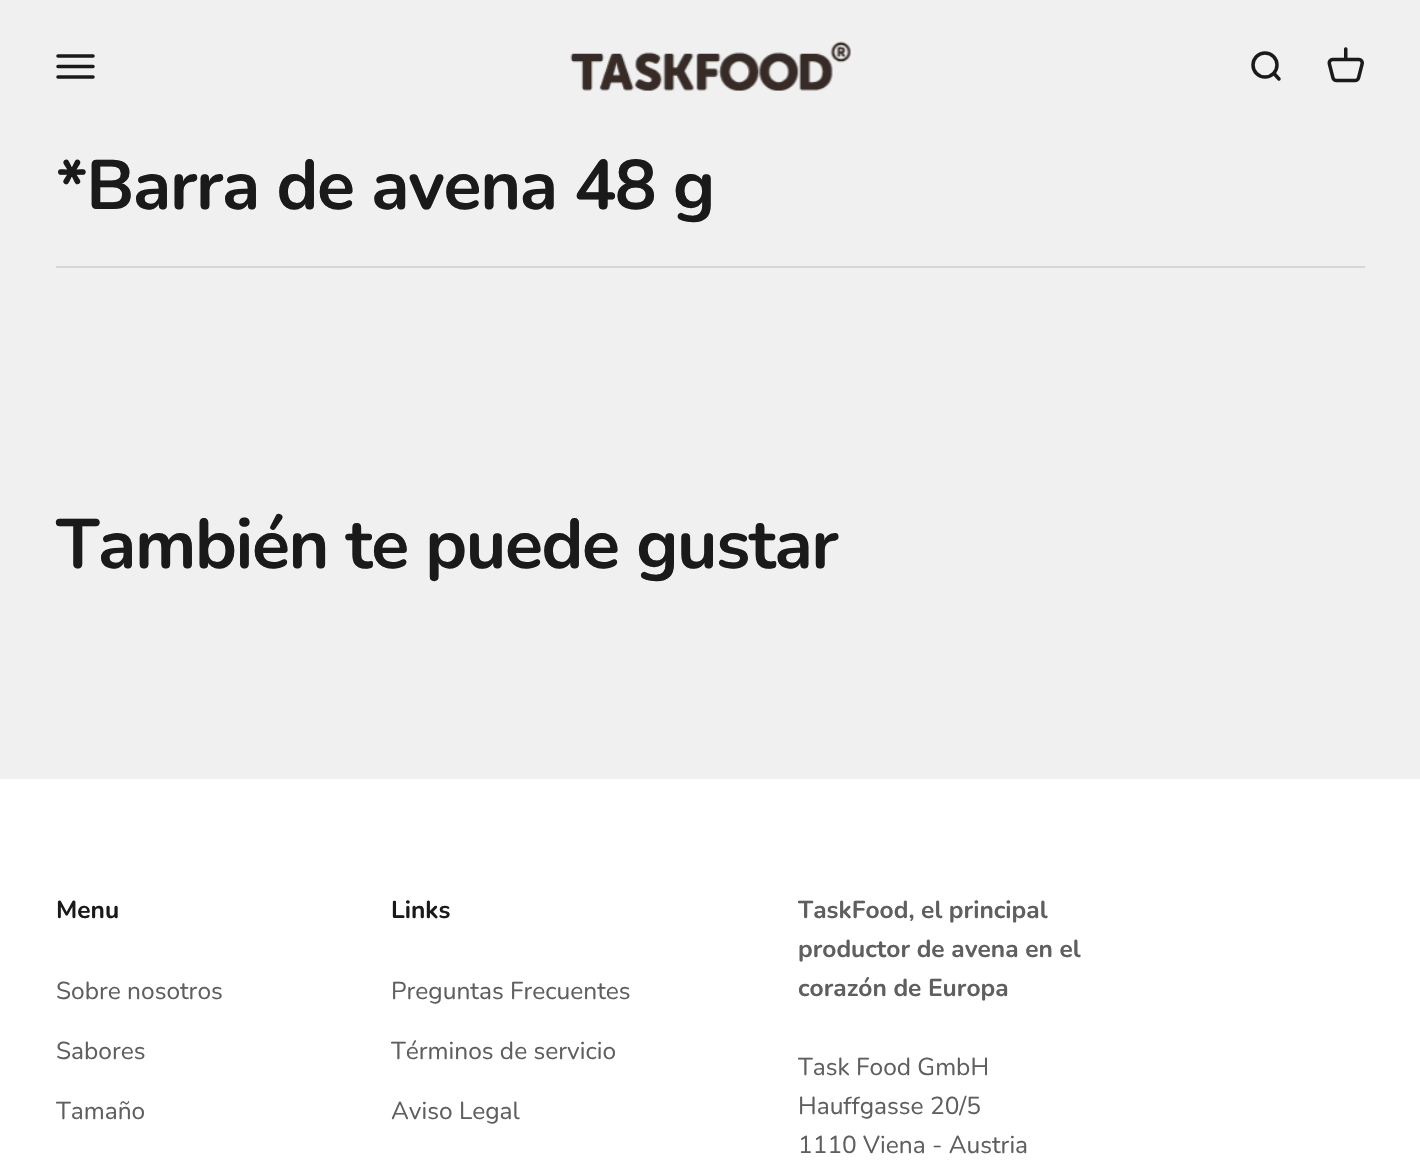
void draw(SkCanvas* canvas) {
    SkPaint paint;
    paint.setAntiAlias(true);
    auto face = [&](const char* family, int weight, float size, bool italic = false) {
        SkFontStyle style(weight, SkFontStyle::kNormal_Width,
            italic ? SkFontStyle::kItalic_Slant : SkFontStyle::kUpright_Slant);
        SkFont result(fontMgr->matchFamilyStyle(family, style), size);
        result.setSubpixel(true);
        return result;
    };
    auto write = [&](const char* s, float x, float y, const SkFont& font, SkColor color) {
        SkPaint ink(SkColor4f::FromColor(color));
        ink.setAntiAlias(true);
        canvas->drawString(s, x, y, font, ink);
    };
    auto writeSpaced = [&](const char* s, float x, float y, const SkFont& font, const SkPaint& ink, float letter, float word) {
        std::vector<SkGlyphID> glyphs(font.countText(s, strlen(s), SkTextEncoding::kUTF8));
        std::vector<float> xs(glyphs.size());
        font.textToGlyphs(s, strlen(s), SkTextEncoding::kUTF8, glyphs);
        font.getXPos(glyphs, xs, x);
        float extra = 0;
        for (size_t i = 0; i < glyphs.size(); i++) {
            xs[i] += extra;
            extra += letter + word * (glyphs[i] == font.unicharToGlyph(' '));
        }
        canvas->drawTextBlob(SkTextBlob::MakeFromPosHGlyphs(glyphs, xs, y, font), 0, 0, ink);
    };
    auto block = [&](float x, float y, float w, float h, SkColor color) {
        SkPaint ink(SkColor4f::FromColor(color));
        ink.setAntiAlias(true);
        canvas->drawRect(SkRect::MakeXYWH(x, y, w, h), ink);
    };
    auto paste = [&](const char* path, float x, float y, float w, float h) {
        auto image = SkImages::DeferredFromEncodedData(SkData::MakeFromFileName(path));
        canvas->drawImageRect(image, SkRect::MakeXYWH(x, y, w, h), SkSamplingOptions());
    };
    canvas->clear(SkColorSetRGB(240, 240, 240));
    paint.setStyle(SkPaint::kStroke_Style);
    paint.setStrokeWidth(3.5f);
    paint.setStrokeCap(SkPaint::kRound_Cap);
    paint.setColor(SkColorSetRGB(26, 26, 26));
    canvas->drawPath(SkPathBuilder().moveTo(58, 56).lineTo(93, 56).moveTo(58, 66.5f).lineTo(93, 66.5f).moveTo(58, 77).lineTo(93, 77).detach(), paint);
    paste("pic1.png", 570, 41, 281, 50);
    paint.setStrokeCap(SkPaint::kButt_Cap);
    canvas->drawCircle(1265, 65, 12, paint);
    paint.setStrokeCap(SkPaint::kRound_Cap);
    paint.setStrokeJoin(SkPaint::kRound_Join);
    canvas->drawPath(SkPathBuilder().moveTo(1274, 73.5f).lineTo(1279, 79).detach(), paint);
    paste("pic2.png", 1327, 47, 37, 36);
    auto kFont1 = face("Nunito", 700, 70);
    paint.setStyle(SkPaint::kFill_Style);
    writeSpaced("*Barra de avena 48 g", 56, 209, kFont1, paint, -1.4f, 0);
    block(56, 266, 1309, 2, SkColorSetRGB(214, 214, 214));
    writeSpaced("También te puede gustar", 56, 568, kFont1, paint, -1.4f, 0);
    block(0, 779, 1420, 396, SK_ColorWHITE);
    auto kFont2 = face("Nunito", 700, 24.5f);
    write("Menu", 56, 918, kFont2, SkColorSetRGB(26, 26, 26));
    auto kFont3 = face("Nunito", 400, 24.5f);
    write("Sobre nosotros", 56, 999, kFont3, SkColorSetRGB(95, 95, 95));
    write("Sabores", 56, 1059, kFont3, SkColorSetRGB(95, 95, 95));
    write("Tamaño", 56, 1119, kFont3, SkColorSetRGB(95, 95, 95));
    write("Links", 391, 918, kFont2, SkColorSetRGB(26, 26, 26));
    write("Preguntas Frecuentes", 391, 999, kFont3, SkColorSetRGB(95, 95, 95));
    write("Términos de servicio", 391, 1059, kFont3, SkColorSetRGB(95, 95, 95));
    write("Aviso Legal", 391, 1119, kFont3, SkColorSetRGB(95, 95, 95));
    write("TaskFood, el principal", 798, 918, kFont2, SkColorSetRGB(95, 95, 95));
    write("productor de avena en el", 798, 957, kFont2, SkColorSetRGB(95, 95, 95));
    write("corazón de Europa", 798, 996, kFont2, SkColorSetRGB(95, 95, 95));
    write("Task Food GmbH", 798, 1075, kFont3, SkColorSetRGB(95, 95, 95));
    write("Hauffgasse 20/5", 798, 1114, kFont3, SkColorSetRGB(95, 95, 95));
    write("1110 Viena - Austria", 798, 1153, kFont3, SkColorSetRGB(95, 95, 95));
}
